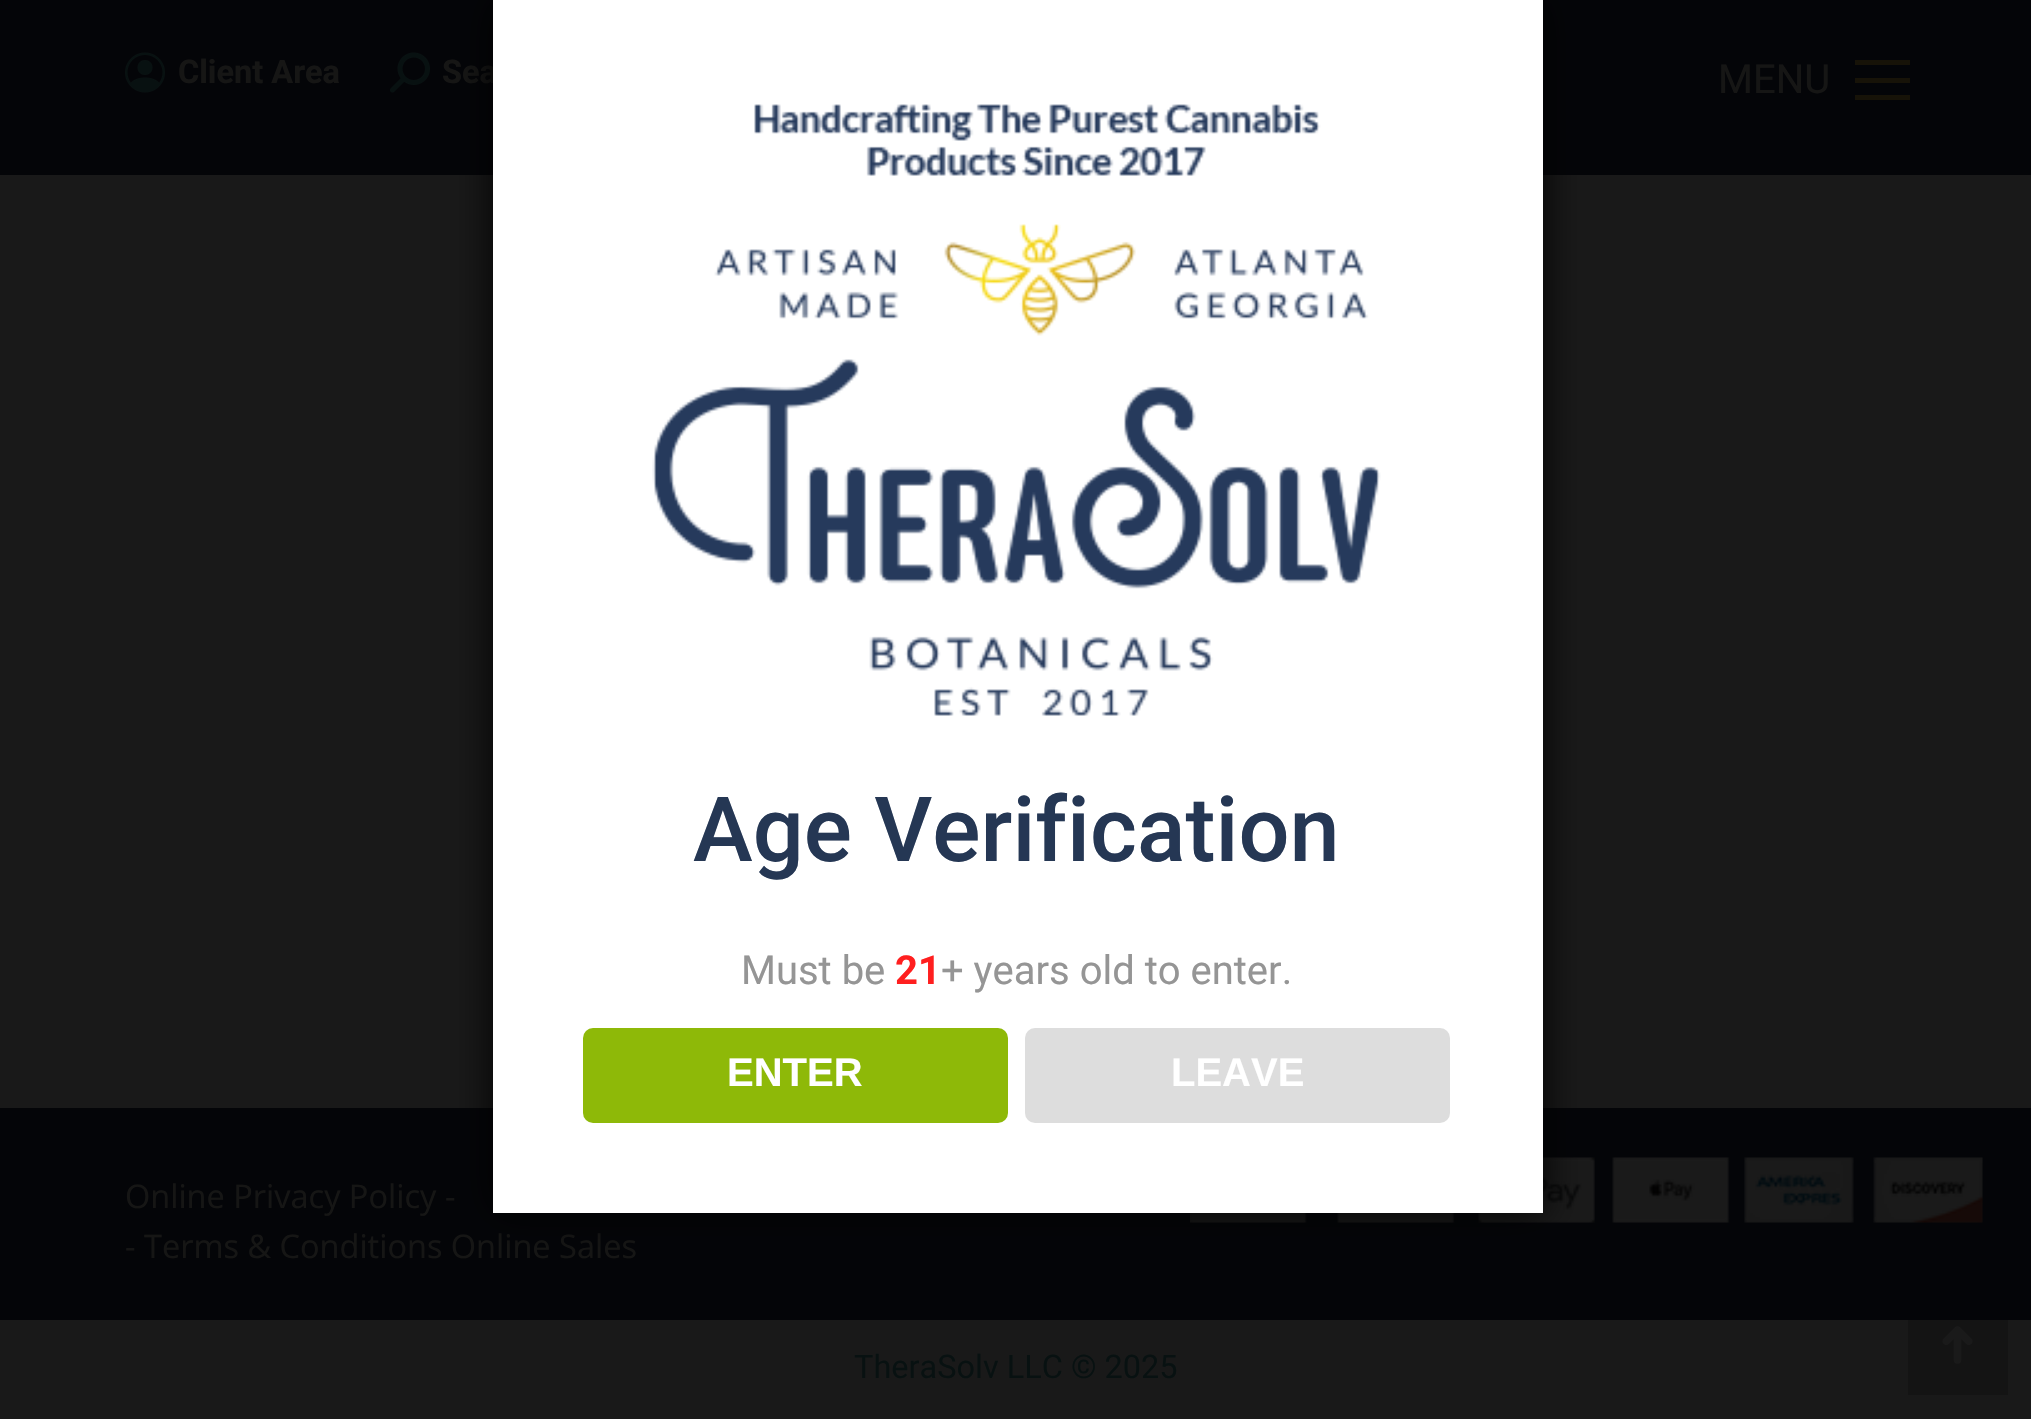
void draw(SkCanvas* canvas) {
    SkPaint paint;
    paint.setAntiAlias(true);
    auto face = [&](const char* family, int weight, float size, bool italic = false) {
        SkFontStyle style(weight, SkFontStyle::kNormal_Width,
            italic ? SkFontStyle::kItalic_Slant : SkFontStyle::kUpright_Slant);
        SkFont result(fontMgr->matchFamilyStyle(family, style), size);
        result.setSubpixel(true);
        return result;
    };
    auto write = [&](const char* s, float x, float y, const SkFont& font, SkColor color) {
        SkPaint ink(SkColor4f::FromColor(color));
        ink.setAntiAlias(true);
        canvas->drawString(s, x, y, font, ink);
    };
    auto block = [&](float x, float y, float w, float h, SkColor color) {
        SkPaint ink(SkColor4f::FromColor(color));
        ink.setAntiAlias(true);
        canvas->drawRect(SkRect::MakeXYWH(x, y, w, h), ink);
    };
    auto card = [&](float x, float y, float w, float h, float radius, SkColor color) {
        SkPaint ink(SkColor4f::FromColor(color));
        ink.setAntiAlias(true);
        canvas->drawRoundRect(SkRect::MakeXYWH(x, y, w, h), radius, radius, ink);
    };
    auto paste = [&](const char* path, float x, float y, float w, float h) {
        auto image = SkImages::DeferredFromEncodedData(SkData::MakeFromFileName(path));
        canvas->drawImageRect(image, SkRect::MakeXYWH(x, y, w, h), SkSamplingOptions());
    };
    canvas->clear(SkColorSetRGB(25, 25, 25));
    block(0, 0, 2031, 175, SkColorSetRGB(4, 5, 8));
    paste("pic1.png", 125, 52, 40, 41);
    auto kFont1 = face("Roboto", 700, 32.5f);
    write("Client Area", 178, 83, kFont1, SkColorSetRGB(22, 22, 21));
    paste("pic2.png", 390, 52, 40, 41);
    write("Sea", 442, 83, kFont1, SkColorSetRGB(22, 22, 21));
    auto kFont2 = face("Roboto", 400, 40);
    write("MENU", 1718, 93, kFont2, SkColorSetRGB(22, 22, 21));
    block(1855, 60, 55, 5, SkColorSetRGB(23, 19, 8));
    block(1855, 78, 55, 5, SkColorSetRGB(23, 19, 8));
    block(1855, 95, 55, 5, SkColorSetRGB(23, 19, 8));
    block(0, 1108, 2031, 212, SkColorSetRGB(4, 5, 8));
    auto kFont3 = face("Open Sans", 400, 32.5f);
    write("Online Privacy Policy", 125, 1208, kFont3, SkColorSetRGB(22, 22, 21));
    write("-", 445, 1208, kFont3, SkColorSetRGB(22, 22, 21));
    write("-", 125, 1258, kFont3, SkColorSetRGB(22, 22, 21));
    write("Terms & Conditions Online Sales", 144, 1258, kFont3, SkColorSetRGB(22, 22, 21));
    paste("pic3.png", 1190, 1157, 793, 66);
    auto kFont4 = face("Roboto", 400, 32.5f);
    write("TheraSolv LLC © 2025", 854, 1378, kFont4, SkColorSetRGB(8, 17, 17));
    block(1908, 1320, 100, 75, SkColorSetARGB(51, 0, 0, 0));
    paste("pic4.png", 1942, 1326, 31, 38);
    paint.setColor(SK_ColorBLACK);
    paint.setMaskFilter(SkMaskFilter::MakeBlur(kNormal_SkBlurStyle, 19));
    canvas->drawRect(SkRect::MakeXYWH(493, 0, 1050, 1213), paint);
    paint.setMaskFilter(nullptr);
    block(493, 0, 1050, 1213, SK_ColorWHITE);
    paste("pic5.png", 652, 104, 729, 612);
    auto kFont5 = face("Roboto", 500, 90);
    write("Age Verification", 693, 861, kFont5, SkColorSetRGB(37, 55, 84));
    write("Must be", 741, 984, kFont2, SkColorSetRGB(149, 149, 149));
    auto kFont6 = face("Roboto", 700, 40);
    write("21", 895, 984, kFont6, SkColorSetRGB(255, 31, 31));
    write("+ years old to enter.", 941, 984, kFont2, SkColorSetRGB(149, 149, 149));
    card(583, 1028, 425, 95, 10, SkColorSetRGB(142, 185, 8));
    auto kFont7 = face("Liberation Sans", 700, 40);
    write("ENTER", 727, 1086, kFont7, SK_ColorWHITE);
    card(1025, 1028, 425, 95, 10, SkColorSetRGB(221, 221, 221));
    write("LEAVE", 1171, 1086, kFont7, SK_ColorWHITE);
}
